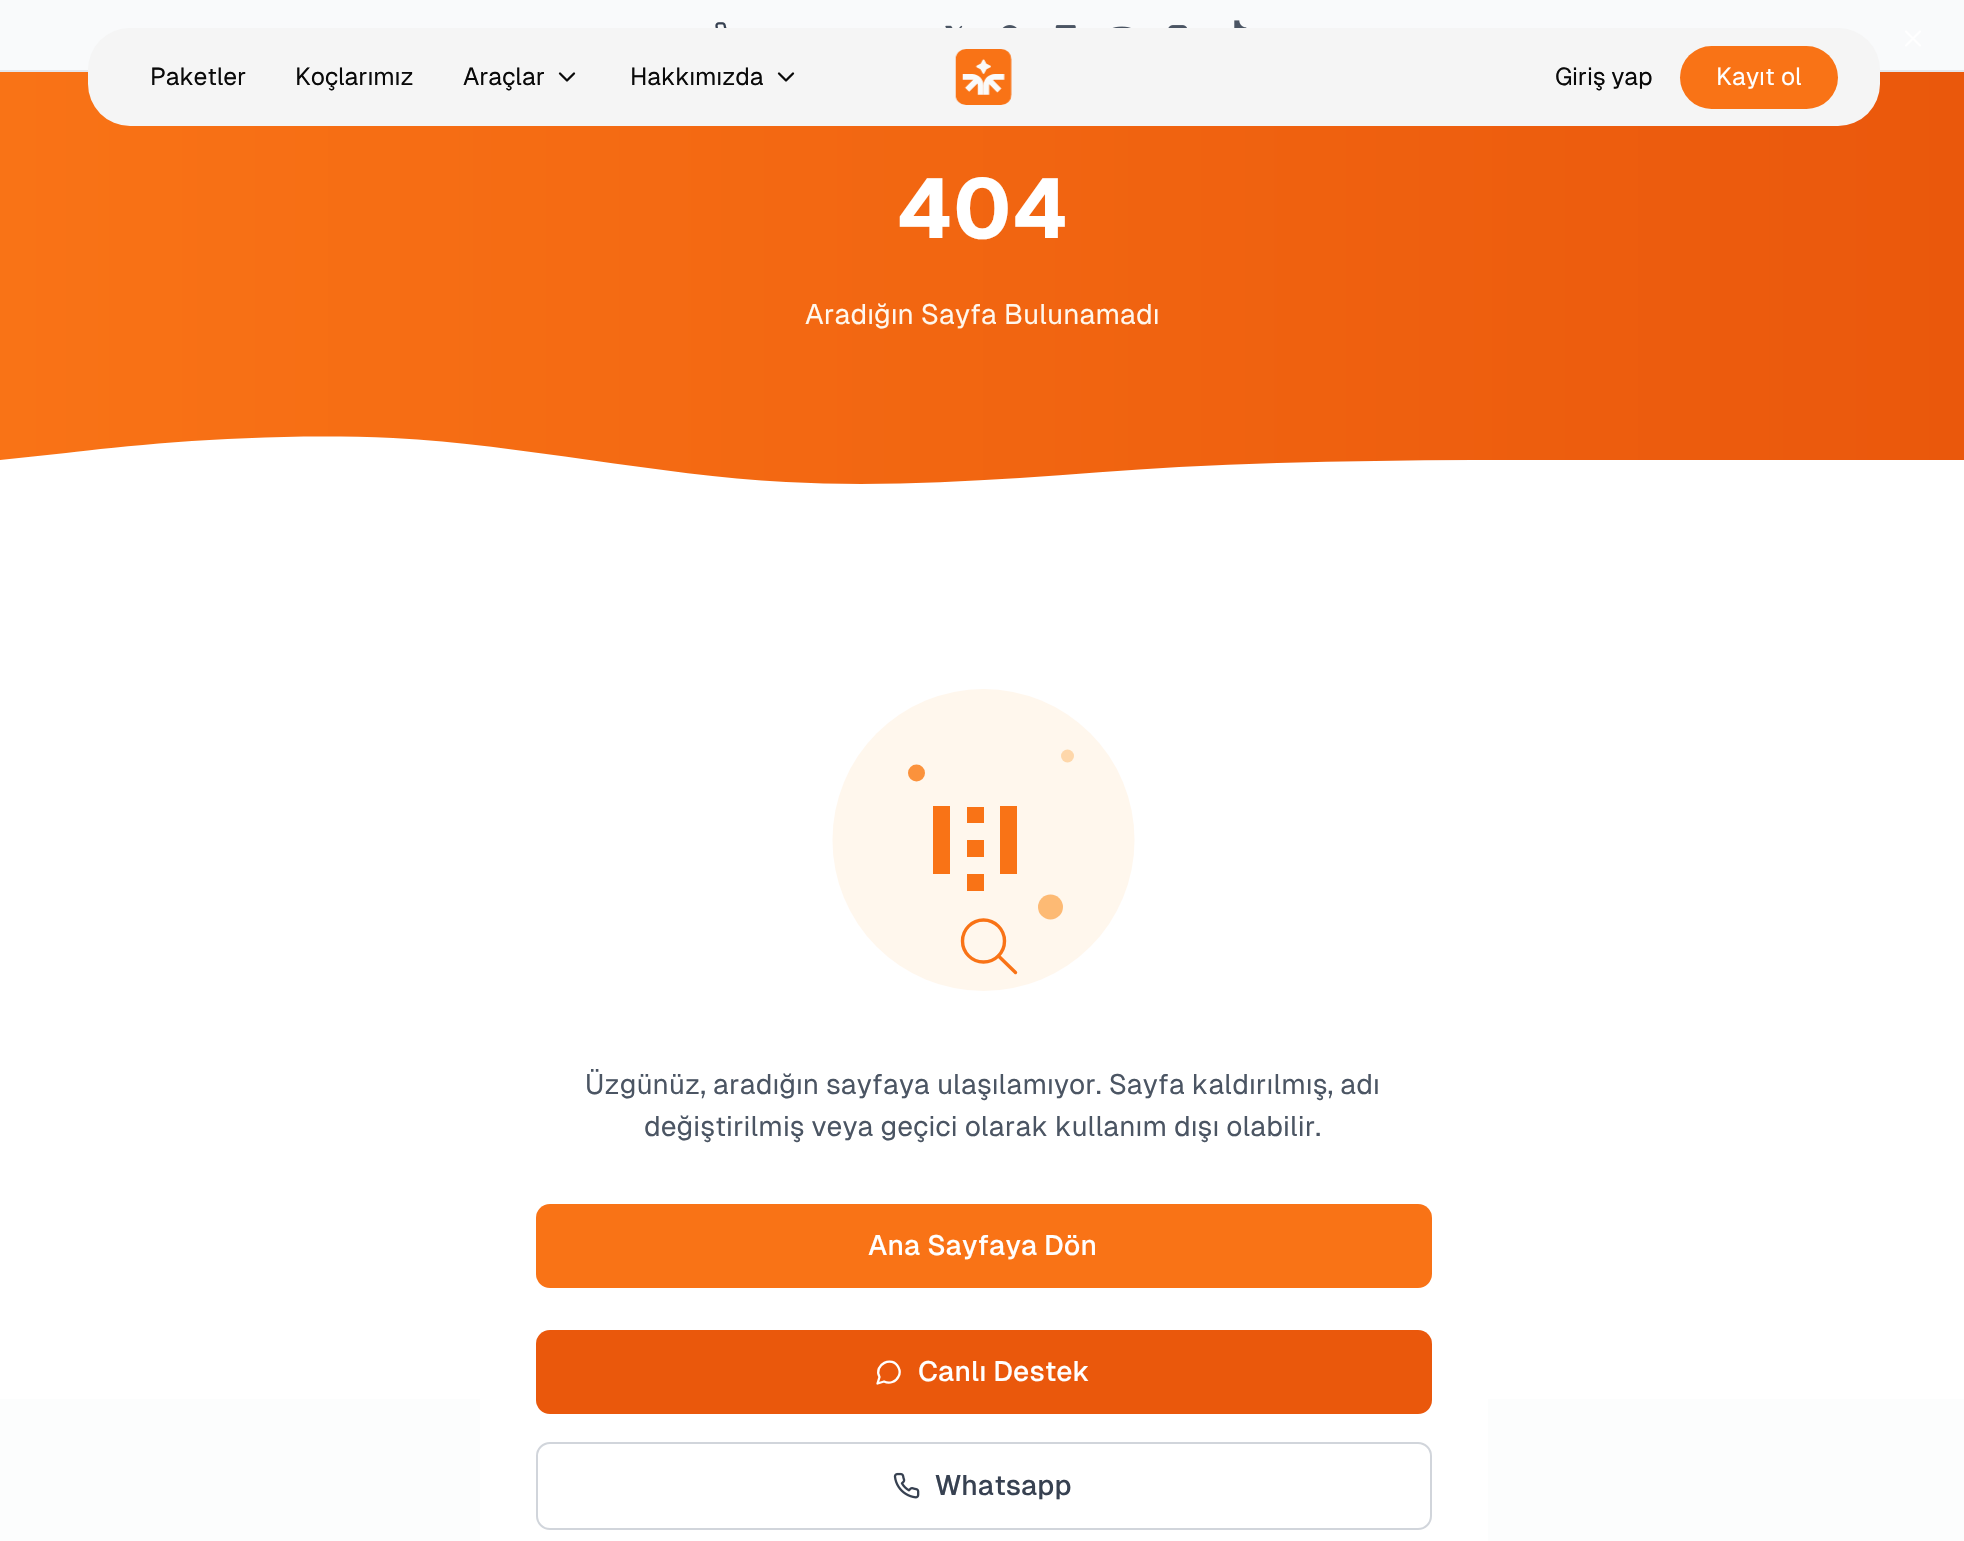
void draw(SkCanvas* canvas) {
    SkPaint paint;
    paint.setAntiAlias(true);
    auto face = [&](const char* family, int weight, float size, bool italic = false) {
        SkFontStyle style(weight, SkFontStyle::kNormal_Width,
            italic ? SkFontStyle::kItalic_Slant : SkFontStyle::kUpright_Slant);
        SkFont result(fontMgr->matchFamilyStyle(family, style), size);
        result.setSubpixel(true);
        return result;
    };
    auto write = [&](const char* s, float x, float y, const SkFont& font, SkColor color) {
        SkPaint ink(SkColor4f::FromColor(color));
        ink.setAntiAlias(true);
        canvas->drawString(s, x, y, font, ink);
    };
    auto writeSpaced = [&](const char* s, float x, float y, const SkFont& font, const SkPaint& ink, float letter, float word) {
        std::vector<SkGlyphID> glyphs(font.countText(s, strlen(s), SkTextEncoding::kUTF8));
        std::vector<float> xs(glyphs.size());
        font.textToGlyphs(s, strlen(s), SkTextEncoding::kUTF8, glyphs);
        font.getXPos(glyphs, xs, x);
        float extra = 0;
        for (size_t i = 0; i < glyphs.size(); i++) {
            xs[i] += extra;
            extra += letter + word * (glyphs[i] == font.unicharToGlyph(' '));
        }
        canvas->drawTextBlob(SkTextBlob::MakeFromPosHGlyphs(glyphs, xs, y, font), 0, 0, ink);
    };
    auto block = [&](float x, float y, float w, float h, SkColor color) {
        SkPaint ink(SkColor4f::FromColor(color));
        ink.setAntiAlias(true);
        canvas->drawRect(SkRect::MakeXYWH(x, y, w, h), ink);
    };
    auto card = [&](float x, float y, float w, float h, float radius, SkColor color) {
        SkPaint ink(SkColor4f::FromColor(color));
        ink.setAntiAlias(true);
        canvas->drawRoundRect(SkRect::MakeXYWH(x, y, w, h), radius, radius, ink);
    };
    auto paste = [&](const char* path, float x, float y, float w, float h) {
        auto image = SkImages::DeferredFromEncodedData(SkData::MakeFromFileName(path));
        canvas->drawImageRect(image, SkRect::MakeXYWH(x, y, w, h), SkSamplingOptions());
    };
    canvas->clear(SK_ColorWHITE);
    block(0, 0, 1964, 70, SkColorSetRGB(249, 250, 251));
    block(0, 70, 1964, 2, SkColorSetRGB(229, 231, 235));
    paste("pic1.png", 715, 22, 12, 6);
    paste("pic2.png", 945, 25, 18, 3);
    paste("pic3.png", 1002, 25, 15, 3);
    paste("pic4.png", 1055, 25, 21, 3);
    paste("pic5.png", 1112, 26, 19, 2);
    paste("pic6.png", 1168, 25, 19, 3);
    paste("pic7.png", 1234, 20, 13, 8);
    paint.setStyle(SkPaint::kStroke_Style);
    paint.setStrokeWidth(2.3f);
    paint.setStrokeCap(SkPaint::kRound_Cap);
    paint.setStrokeJoin(SkPaint::kRound_Join);
    paint.setColor(SK_ColorWHITE);
    canvas->drawPath(SkPathBuilder().moveTo(1920, 31.5f).lineTo(1906, 45.5f).moveTo(1906, 31.5f).lineTo(1920, 45.5f).detach(), paint);
    paint.setStyle(SkPaint::kFill_Style);
    {
        const SkColor colors[] = {SK_ColorWHITE, SkColorSetRGB(249, 250, 251)};
        const float stops[] = {0, 1};
        const SkPoint ends[] = {{983, 0}, {983, 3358}};
        paint.setShader(SkGradientShader::MakeLinear(ends, colors, stops, 2, SkTileMode::kClamp));
        paint.setAlpha(255);
    }
    canvas->drawRect(SkRect::MakeXYWH(0, 1399, 1964, 142), paint);
    {
        const SkColor colors[] = {SkColorSetRGB(249, 115, 22), SkColorSetRGB(234, 88, 12)};
        const float stops[] = {0, 1};
        const SkPoint ends[] = {{0, 252}, {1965, 252}};
        paint.setShader(SkGradientShader::MakeLinear(ends, colors, stops, 2, SkTileMode::kClamp));
        paint.setAlpha(255);
    }
    canvas->drawRect(SkRect::MakeXYWH(0, 72, 1964, 412), paint);
    card(88, 28, 1792, 98, 42, SkColorSetRGB(245, 245, 245));
    auto kFont1 = face("Geist", 400, 24.5f);
    paint.setShader(nullptr);
    paint.setColor(SkColorSetRGB(10, 10, 10));
    writeSpaced("Paketler", 150, 85, kFont1, paint, -0.25f, 0);
    writeSpaced("Koçlarımız", 295, 85, kFont1, paint, -0.25f, 0);
    writeSpaced("Araçlar", 463, 85, kFont1, paint, -0.25f, 0);
    paint.setStyle(SkPaint::kStroke_Style);
    canvas->drawPath(SkPathBuilder().moveTo(560, 73.5f).lineTo(567, 80.5f).lineTo(574, 73.5f).detach(), paint);
    paint.setStyle(SkPaint::kFill_Style);
    writeSpaced("Hakkımızda", 630, 85, kFont1, paint, -0.25f, 0);
    paint.setStyle(SkPaint::kStroke_Style);
    canvas->drawPath(SkPathBuilder().moveTo(779, 73.5f).lineTo(786, 80.5f).lineTo(793, 73.5f).detach(), paint);
    paste("pic8.png", 955, 49, 57, 56);
    paint.setStyle(SkPaint::kFill_Style);
    writeSpaced("Giriş yap", 1555, 85, kFont1, paint, -0.25f, 0);
    card(1680, 46, 158, 63, 31.5f, SkColorSetRGB(249, 115, 22));
    write("Kayıt ol", 1716, 85, kFont1, SK_ColorWHITE);
    auto kFont2 = face("Geist", 700, 84);
    write("404", 896, 238, kFont2, SK_ColorWHITE);
    auto kFont3 = face("Geist", 400, 28);
    write("Aradığın Sayfa Bulunamadı", 805, 324, kFont3, SkColorSetRGB(255, 247, 237));
    paint.setColor(SK_ColorWHITE);
    canvas->drawPath(SkPathBuilder().moveTo(0, 460).lineTo(66, 453).cubicTo(131, 445, 262, 432, 393, 438).cubicTo(524, 445, 655, 475, 786, 482).cubicTo(917, 489, 1048, 475, 1179, 467).cubicTo(1310, 460, 1441, 460, 1572, 460).lineTo(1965, 460).lineTo(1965, 504).lineTo(0, 504).close().detach(), paint);
    card(480, 616, 1008, 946, 21, SK_ColorWHITE);
    paint.setColor(SkColorSetRGB(255, 247, 237));
    canvas->drawCircle(983.5f, 840, 151, paint);
    block(933, 806, 17, 68, SkColorSetRGB(249, 115, 22));
    block(967, 807, 17, 16, SkColorSetRGB(249, 115, 22));
    block(967, 840, 17, 17, SkColorSetRGB(249, 115, 22));
    block(967, 874, 17, 17, SkColorSetRGB(249, 115, 22));
    block(1000, 806, 17, 68, SkColorSetRGB(249, 115, 22));
    paint.setColor(SkColorSetRGB(251, 146, 60));
    canvas->drawCircle(916.5f, 773, 8.5f, paint);
    paint.setColor(SkColorSetRGB(253, 186, 116));
    canvas->drawCircle(1050.5f, 907, 12.5f, paint);
    paint.setColor(SkColorSetRGB(254, 215, 170));
    canvas->drawCircle(1067.5f, 756, 6.5f, paint);
    paint.setStyle(SkPaint::kStroke_Style);
    paint.setStrokeWidth(3.4f);
    paint.setStrokeCap(SkPaint::kButt_Cap);
    paint.setStrokeJoin(SkPaint::kMiter_Join);
    paint.setColor(SkColorSetRGB(249, 115, 22));
    canvas->drawCircle(983.5f, 941, 21, paint);
    paint.setStrokeCap(SkPaint::kRound_Cap);
    canvas->drawPath(SkPathBuilder().moveTo(998.5f, 956).lineTo(1015.5f, 972.5f).detach(), paint);
    write("Üzgünüz, aradığın sayfaya ulaşılamıyor. Sayfa kaldırılmış, adı", 585, 1094, kFont3, SkColorSetRGB(75, 85, 99));
    write("değiştirilmiş veya geçici olarak kullanım dışı olabilir.", 644, 1136, kFont3, SkColorSetRGB(75, 85, 99));
    card(536, 1204, 896, 84, 14, SkColorSetRGB(249, 115, 22));
    auto kFont4 = face("Geist", 500, 28);
    write("Ana Sayfaya Dön", 868, 1255, kFont4, SK_ColorWHITE);
    card(536, 1330, 896, 84, 14, SkColorSetRGB(234, 88, 12));
    paint.setStrokeWidth(2.3f);
    paint.setStrokeJoin(SkPaint::kRound_Join);
    paint.setColor(SK_ColorWHITE);
    canvas->drawPath(SkPathBuilder().moveTo(884, 1381.5f).cubicTo(889.5f, 1384, 896, 1382, 898.5f, 1376.5f).cubicTo(900, 1374, 900, 1370.5f, 898.5f, 1367.5f).cubicTo(892.5f, 1355, 873, 1364.5f, 879.5f, 1377).lineTo(877.5f, 1383.5f).close().detach(), paint);
    write("Canlı Destek", 918, 1381, kFont4, SK_ColorWHITE);
    paint.setStrokeWidth(2);
    paint.setStrokeCap(SkPaint::kButt_Cap);
    paint.setStrokeJoin(SkPaint::kMiter_Join);
    paint.setColor(SkColorSetRGB(209, 213, 219));
    canvas->drawRoundRect(SkRect::MakeXYWH(537, 1443, 894, 86), 13, 13, paint);
    paste("pic9.png", 893, 1472, 27, 27);
    write("Whatsapp", 935, 1495, kFont4, SkColorSetRGB(55, 65, 81));
}
